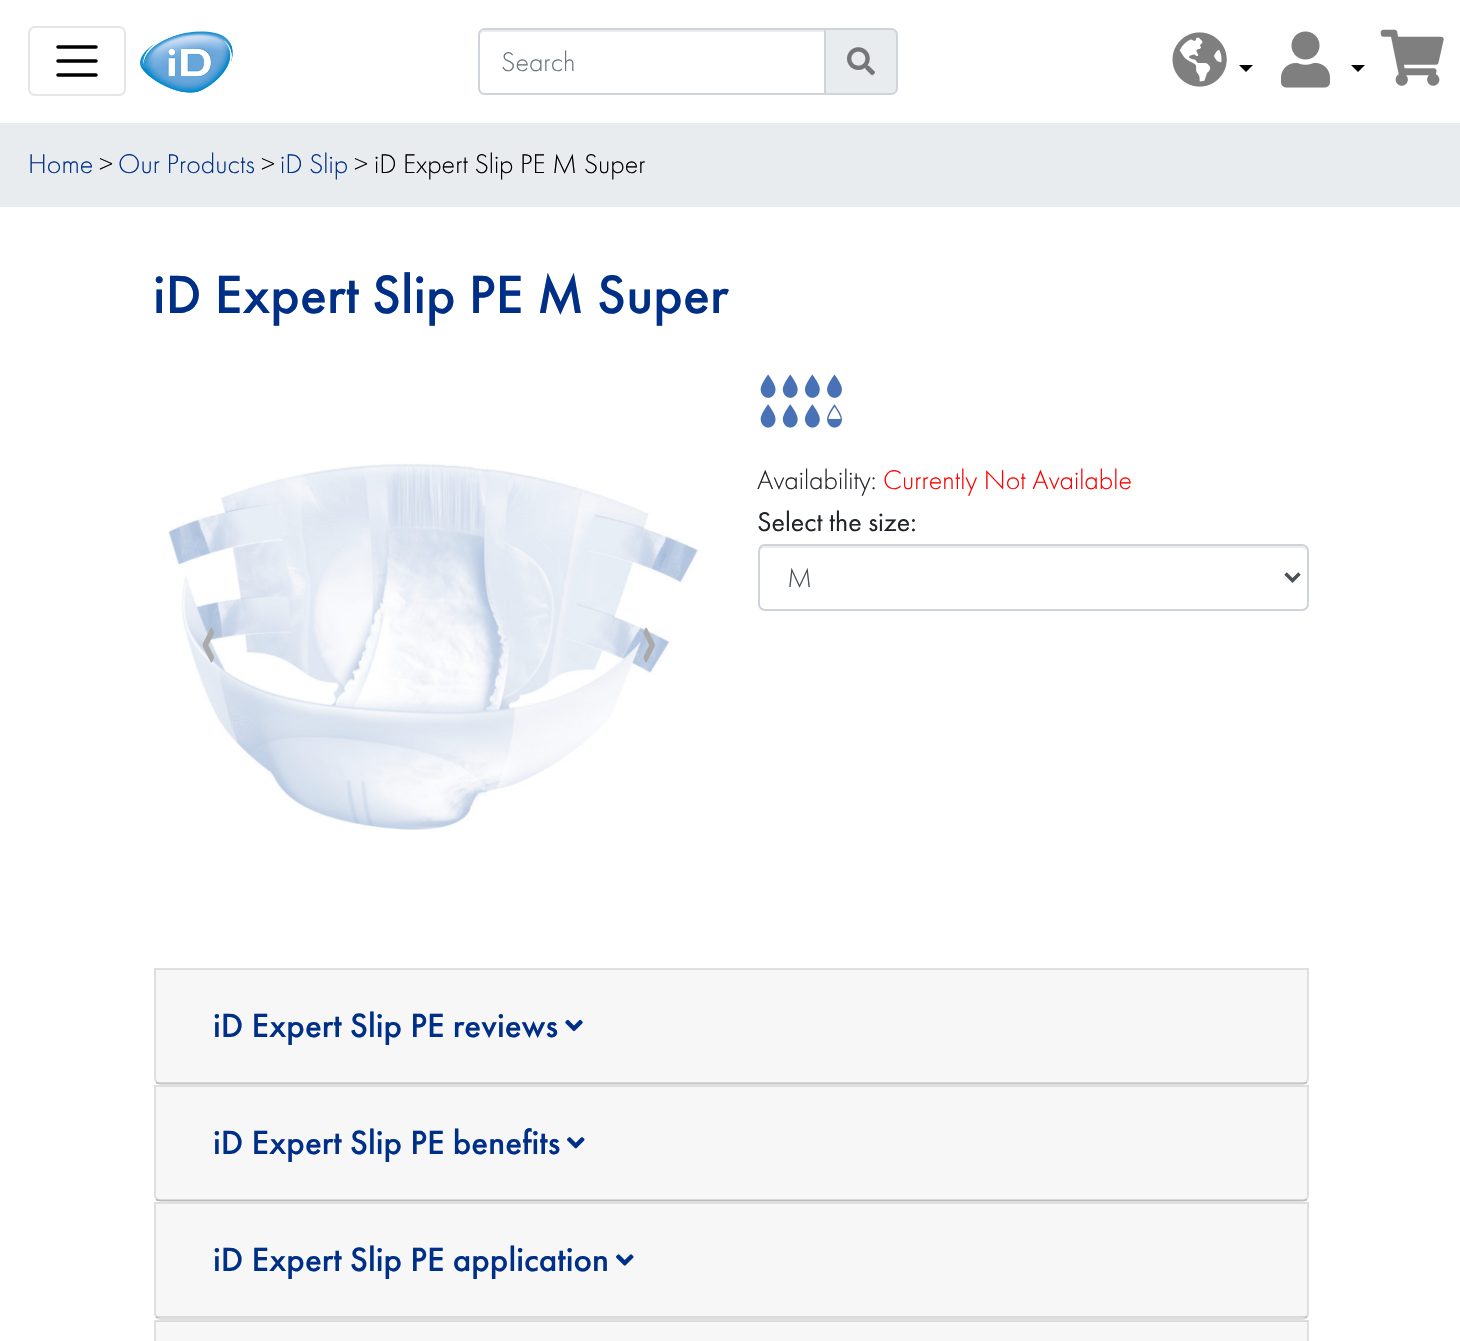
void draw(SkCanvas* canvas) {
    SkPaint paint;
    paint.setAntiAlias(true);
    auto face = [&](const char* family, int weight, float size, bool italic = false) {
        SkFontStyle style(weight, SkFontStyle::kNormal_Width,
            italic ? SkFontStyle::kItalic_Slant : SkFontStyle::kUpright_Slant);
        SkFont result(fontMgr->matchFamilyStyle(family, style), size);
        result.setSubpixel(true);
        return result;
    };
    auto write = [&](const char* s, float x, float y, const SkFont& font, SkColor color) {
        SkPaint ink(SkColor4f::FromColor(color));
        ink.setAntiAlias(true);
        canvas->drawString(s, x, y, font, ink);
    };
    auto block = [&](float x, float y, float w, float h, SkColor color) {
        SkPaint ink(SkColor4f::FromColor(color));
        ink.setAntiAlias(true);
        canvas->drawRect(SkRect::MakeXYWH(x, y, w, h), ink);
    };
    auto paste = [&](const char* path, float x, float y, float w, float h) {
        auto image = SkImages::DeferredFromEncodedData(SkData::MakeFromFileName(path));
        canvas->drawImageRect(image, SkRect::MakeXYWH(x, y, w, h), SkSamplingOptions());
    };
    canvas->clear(SK_ColorWHITE);
    paint.setStyle(SkPaint::kStroke_Style);
    paint.setStrokeWidth(2);
    paint.setColor(SkColorSetRGB(230, 230, 230));
    canvas->drawRoundRect(SkRect::MakeXYWH(29, 27, 96, 68), 6, 6, paint);
    paint.setStrokeWidth(3.5f);
    paint.setStrokeCap(SkPaint::kRound_Cap);
    paint.setColor(SK_ColorBLACK);
    canvas->drawPath(SkPathBuilder().moveTo(58, 47).lineTo(96, 47).moveTo(58, 61).lineTo(96, 61).moveTo(58, 75).lineTo(96, 75).detach(), paint);
    paste("pic1.png", 140, 31, 93, 62);
    paint.setStyle(SkPaint::kFill_Style);
    paint.setColor(SkColorSetRGB(236, 236, 236));
    canvas->drawPath(SkPathBuilder().moveTo(485, 32).lineTo(824, 32).lineTo(824, 30).lineTo(485, 30).cubicTo(481, 30, 480, 34, 480, 37).cubicTo(480, 34, 482, 32, 485, 32).close().detach(), paint);
    paint.setColor(SkColorSetRGB(233, 236, 239));
    canvas->drawPath(SkPathBuilder().moveTo(825, 29).lineTo(891, 29).cubicTo(894.5f, 29, 897, 31.5f, 897, 35).lineTo(897, 88).cubicTo(897, 91.5f, 894.5f, 94, 891, 94).lineTo(825, 94).close().detach(), paint);
    paint.setStyle(SkPaint::kStroke_Style);
    paint.setStrokeWidth(2);
    paint.setStrokeCap(SkPaint::kButt_Cap);
    paint.setColor(SkColorSetRGB(206, 212, 218));
    canvas->drawPath(SkPathBuilder().moveTo(825, 29).lineTo(891, 29).cubicTo(894.5f, 29, 897, 31.5f, 897, 35).lineTo(897, 88).cubicTo(897, 91.5f, 894.5f, 94, 891, 94).lineTo(825, 94).close().detach(), paint);
    canvas->drawPath(SkPathBuilder().moveTo(485, 29).lineTo(825, 29).lineTo(825, 94).lineTo(485, 94).cubicTo(481.5f, 94, 479, 91.5f, 479, 88).lineTo(479, 35).cubicTo(479, 31.5f, 481.5f, 29, 485, 29).close().detach(), paint);
    auto kFont1 = face("Futura PT", 300, 28);
    write("Search", 501, 71, kFont1, SkColorSetRGB(108, 117, 125));
    paste("pic2.png", 847, 47, 28, 29);
    paste("pic3.png", 1172, 32, 55, 55);
    paint.setStyle(SkPaint::kFill_Style);
    paint.setColor(SK_ColorBLACK);
    canvas->drawPath(SkPathBuilder().moveTo(1239, 65).lineTo(1253, 65).lineTo(1246, 72).close().detach(), paint);
    paste("pic4.png", 1281, 31, 49, 57);
    canvas->drawPath(SkPathBuilder().moveTo(1351, 65).lineTo(1365, 65).lineTo(1358, 72).close().detach(), paint);
    paste("pic5.png", 1380, 29, 64, 57);
    block(0, 123, 1460, 84, SkColorSetRGB(233, 236, 239));
    write("Home", 28, 173, kFont1, SkColorSetRGB(0, 47, 135));
    write(">", 99, 173, kFont1, SK_ColorBLACK);
    write("Our Products", 118, 173, kFont1, SkColorSetRGB(0, 47, 135));
    write(">", 261, 173, kFont1, SK_ColorBLACK);
    write("iD Slip", 280, 173, kFont1, SkColorSetRGB(0, 47, 135));
    write(">", 354, 173, kFont1, SK_ColorBLACK);
    write("iD Expert Slip PE M Super", 374, 173, kFont1, SK_ColorBLACK);
    auto kFont2 = face("Futura PT", 500, 56);
    write("iD Expert Slip PE M Super", 153, 313, kFont2, SkColorSetRGB(0, 47, 135));
    paste("pic6.png", 168, 463, 531, 367);
    paste("pic7.png", 202, 627, 12, 36);
    paste("pic8.png", 643, 627, 12, 36);
    paste("pic9.png", 760, 374, 82, 54);
    write("Availability:", 757, 489, kFont1, SkColorSetRGB(33, 37, 41));
    write("Currently Not Available", 883, 489, kFont1, SkColorSetRGB(255, 0, 0));
    auto kFont3 = face("Futura PT", 400, 28);
    write("Select the size:", 757, 531, kFont3, SkColorSetRGB(33, 37, 41));
    paint.setColor(SkColorSetRGB(236, 236, 236));
    canvas->drawPath(SkPathBuilder().moveTo(765, 548).lineTo(1302, 548).cubicTo(1305, 548, 1307, 550, 1307, 553).cubicTo(1307, 550, 1306, 546, 1302, 546).lineTo(765, 546).cubicTo(761, 546, 760, 550, 760, 553).cubicTo(760, 550, 762, 548, 765, 548).close().detach(), paint);
    paint.setStyle(SkPaint::kStroke_Style);
    paint.setColor(SkColorSetRGB(206, 212, 218));
    canvas->drawRoundRect(SkRect::MakeXYWH(759, 545, 549, 65), 6, 6, paint);
    paint.setStrokeWidth(3.5f);
    paint.setColor(SkColorSetRGB(73, 80, 87));
    canvas->drawPath(SkPathBuilder().moveTo(1285.5f, 573.5f).lineTo(1292.5f, 580.5f).lineTo(1299.5f, 573.5f).detach(), paint);
    write("M", 787, 587, kFont1, SkColorSetRGB(73, 80, 87));
    paint.setStrokeWidth(2);
    paint.setColor(SkColorSetRGB(223, 223, 223));
    canvas->drawPath(SkPathBuilder().moveTo(155, 969).lineTo(1308, 969).lineTo(1308, 1078).cubicTo(1308, 1081.5f, 1305.5f, 1084, 1302, 1084).lineTo(161, 1084).cubicTo(157.5f, 1084, 155, 1081.5f, 155, 1078).close().detach(), paint);
    block(156, 970, 1151, 113, SkColorSetARGB(8, 0, 0, 0));
    block(156, 1082, 1151, 2, SkColorSetARGB(31, 0, 0, 0));
    auto kFont4 = face("Futura PT", 500, 35);
    write("iD Expert Slip PE reviews", 213, 1037, kFont4, SkColorSetRGB(0, 47, 135));
    paste("pic10.png", 565, 1019, 18, 13);
    canvas->drawPath(SkPathBuilder().moveTo(155, 1086).lineTo(1308, 1086).lineTo(1308, 1195).cubicTo(1308, 1198.5f, 1305.5f, 1201, 1302, 1201).lineTo(161, 1201).cubicTo(157.5f, 1201, 155, 1198.5f, 155, 1195).close().detach(), paint);
    block(156, 1087, 1151, 114, SkColorSetARGB(8, 0, 0, 0));
    block(156, 1199, 1151, 2, SkColorSetARGB(31, 0, 0, 0));
    write("iD Expert Slip PE benefits", 213, 1154, kFont4, SkColorSetRGB(0, 47, 135));
    paste("pic11.png", 567, 1137, 18, 12);
    canvas->drawPath(SkPathBuilder().moveTo(155, 1203).lineTo(1308, 1203).lineTo(1308, 1313).cubicTo(1308, 1316.5f, 1305.5f, 1319, 1302, 1319).lineTo(161, 1319).cubicTo(157.5f, 1319, 155, 1316.5f, 155, 1313).close().detach(), paint);
    block(156, 1204, 1151, 114, SkColorSetARGB(8, 0, 0, 0));
    block(156, 1316, 1151, 2, SkColorSetARGB(31, 0, 0, 0));
    write("iD Expert Slip PE application", 213, 1271, kFont4, SkColorSetRGB(0, 47, 135));
    paste("pic12.png", 616, 1254, 18, 12);
    canvas->drawRect(SkRect::MakeXYWH(155, 1321, 1153, 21), paint);
    block(156, 1321, 1151, 20, SkColorSetARGB(8, 0, 0, 0));
}
